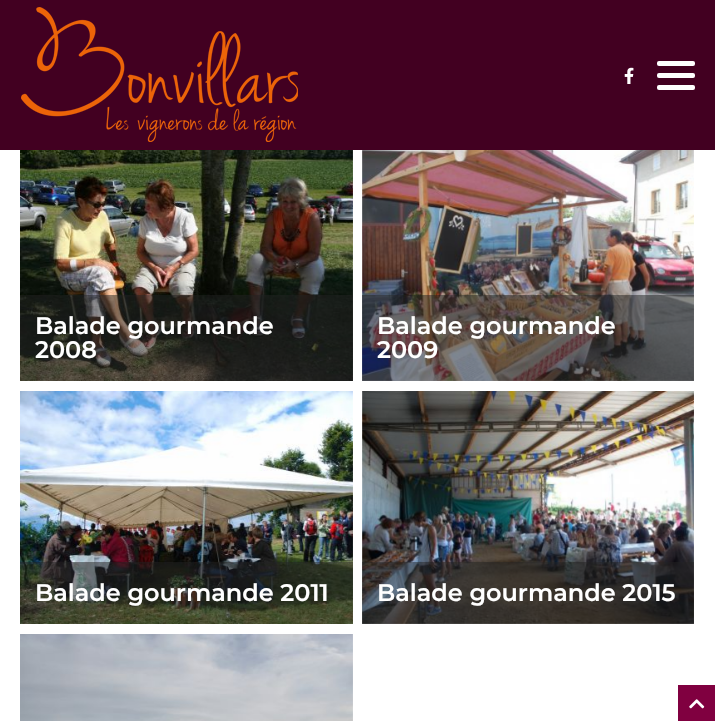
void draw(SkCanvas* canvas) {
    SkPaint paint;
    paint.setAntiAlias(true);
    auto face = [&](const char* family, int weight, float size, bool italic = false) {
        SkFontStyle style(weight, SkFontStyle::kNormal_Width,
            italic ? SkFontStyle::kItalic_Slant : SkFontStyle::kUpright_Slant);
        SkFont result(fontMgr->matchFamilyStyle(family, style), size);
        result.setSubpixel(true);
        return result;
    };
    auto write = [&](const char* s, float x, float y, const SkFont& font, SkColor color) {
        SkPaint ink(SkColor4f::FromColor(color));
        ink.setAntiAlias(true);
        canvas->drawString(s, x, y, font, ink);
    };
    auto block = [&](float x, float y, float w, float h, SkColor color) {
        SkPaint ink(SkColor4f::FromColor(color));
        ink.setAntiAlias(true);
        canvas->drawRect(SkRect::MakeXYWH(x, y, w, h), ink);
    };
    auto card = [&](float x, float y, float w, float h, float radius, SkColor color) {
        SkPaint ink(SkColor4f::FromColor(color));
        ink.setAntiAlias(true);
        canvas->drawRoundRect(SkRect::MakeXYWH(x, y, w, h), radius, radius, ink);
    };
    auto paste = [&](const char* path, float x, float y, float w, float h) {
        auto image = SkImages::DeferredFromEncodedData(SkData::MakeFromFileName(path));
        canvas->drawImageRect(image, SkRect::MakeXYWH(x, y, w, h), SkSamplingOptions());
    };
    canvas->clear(SK_ColorWHITE);
    block(0, 0, 715, 150, SkColorSetRGB(66, 0, 33));
    paste("pic1.png", 21, 7, 277, 135);
    paste("pic2.png", 624, 67, 10, 17);
    card(657, 73, 38, 5, 2, SK_ColorWHITE);
    card(657, 61, 38, 5, 2, SK_ColorWHITE);
    card(657, 85, 38, 5, 2, SK_ColorWHITE);
    paste("pic3.png", 20, 150, 333, 231);
    block(20, 295, 333, 86, SkColorSetARGB(128, 34, 34, 34));
    auto kFont1 = face("Montserrat", 600, 24);
    write("Balade gourmande", 35, 334, kFont1, SK_ColorWHITE);
    write("2008", 35, 358, kFont1, SK_ColorWHITE);
    paste("pic4.png", 362, 150, 332, 231);
    block(362, 295, 332, 86, SkColorSetARGB(128, 34, 34, 34));
    write("Balade gourmande", 377, 334, kFont1, SK_ColorWHITE);
    write("2009", 377, 358, kFont1, SK_ColorWHITE);
    paste("pic5.png", 20, 391, 333, 233);
    block(20, 562, 333, 62, SkColorSetARGB(128, 34, 34, 34));
    write("Balade gourmande 2011", 35, 601, kFont1, SK_ColorWHITE);
    paste("pic6.png", 362, 391, 332, 233);
    block(362, 562, 332, 62, SkColorSetARGB(128, 34, 34, 34));
    write("Balade gourmande 2015", 377, 601, kFont1, SK_ColorWHITE);
    paste("pic7.png", 20, 634, 333, 87);
    block(678, 685, 37, 36, SkColorSetRGB(128, 0, 64));
    paste("pic8.png", 689, 699, 16, 10);
}
